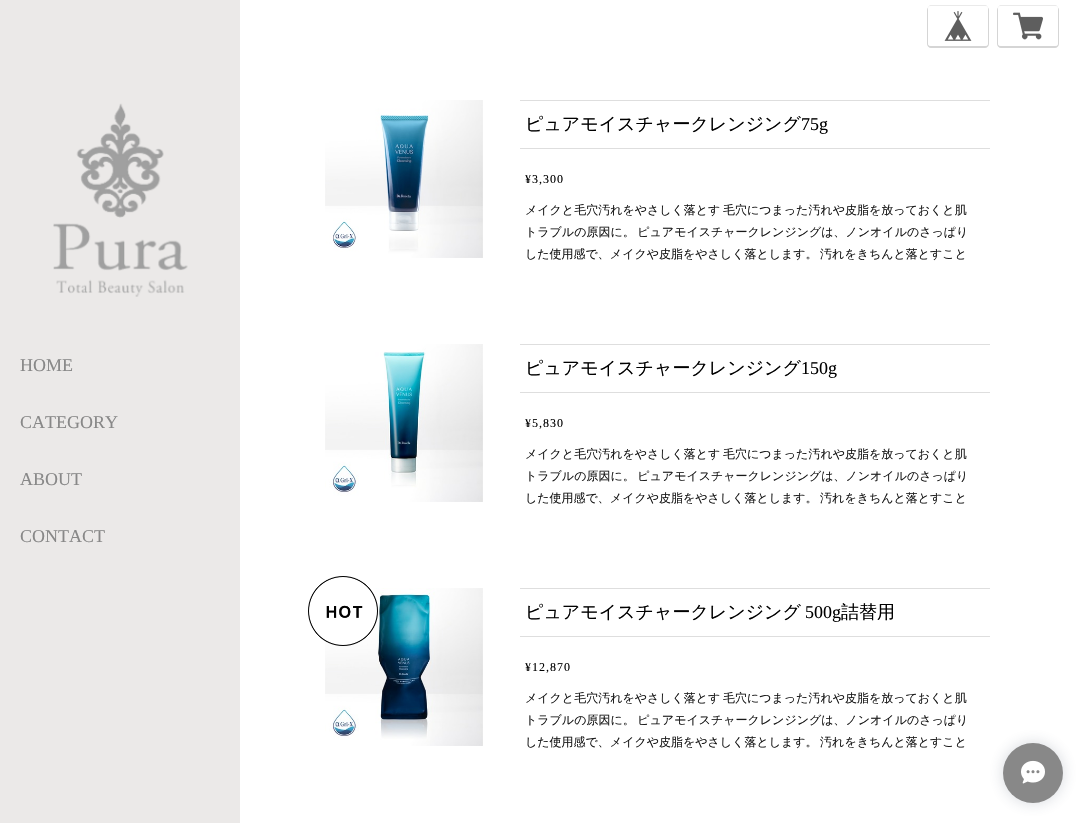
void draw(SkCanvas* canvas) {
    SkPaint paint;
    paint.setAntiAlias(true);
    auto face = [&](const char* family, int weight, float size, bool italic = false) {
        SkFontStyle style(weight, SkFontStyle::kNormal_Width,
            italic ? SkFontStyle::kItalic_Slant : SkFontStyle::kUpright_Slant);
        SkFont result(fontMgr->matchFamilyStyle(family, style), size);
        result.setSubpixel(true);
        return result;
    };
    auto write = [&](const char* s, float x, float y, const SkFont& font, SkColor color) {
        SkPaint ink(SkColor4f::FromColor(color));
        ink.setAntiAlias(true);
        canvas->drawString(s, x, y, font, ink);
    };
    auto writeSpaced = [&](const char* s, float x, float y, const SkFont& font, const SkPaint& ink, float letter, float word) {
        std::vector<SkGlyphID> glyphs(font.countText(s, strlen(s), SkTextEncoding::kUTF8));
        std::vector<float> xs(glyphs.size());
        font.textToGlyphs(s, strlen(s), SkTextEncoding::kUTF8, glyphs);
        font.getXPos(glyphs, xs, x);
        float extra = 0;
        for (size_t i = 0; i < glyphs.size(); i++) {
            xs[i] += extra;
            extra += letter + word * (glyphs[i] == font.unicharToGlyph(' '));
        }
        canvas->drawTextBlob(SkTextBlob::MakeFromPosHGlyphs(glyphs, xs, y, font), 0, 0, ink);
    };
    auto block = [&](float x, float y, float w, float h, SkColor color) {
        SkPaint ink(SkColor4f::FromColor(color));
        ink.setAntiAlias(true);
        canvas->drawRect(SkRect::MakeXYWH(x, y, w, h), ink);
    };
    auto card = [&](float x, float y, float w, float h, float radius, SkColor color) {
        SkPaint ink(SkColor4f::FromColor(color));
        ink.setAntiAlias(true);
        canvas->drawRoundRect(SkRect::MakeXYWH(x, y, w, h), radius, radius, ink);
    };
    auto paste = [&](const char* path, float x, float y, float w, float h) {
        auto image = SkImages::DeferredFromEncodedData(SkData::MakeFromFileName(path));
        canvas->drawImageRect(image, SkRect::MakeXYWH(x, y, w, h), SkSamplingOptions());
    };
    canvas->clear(SkColorSetRGB(235, 233, 232));
    block(240, 0, 843, 823, SK_ColorWHITE);
    paint.setColor(SkColorSetRGB(234, 234, 234));
    canvas->drawPath(SkPathBuilder().moveTo(931, 5).cubicTo(929, 5, 928, 7, 928, 9).cubicTo(928, 7, 929, 6, 931, 6).lineTo(985, 6).cubicTo(987, 6, 988, 7, 988, 9).cubicTo(988, 7, 987, 5, 985, 5).close().detach(), paint);
    paint.setColor(SkColorSetRGB(213, 213, 213));
    canvas->drawPath(SkPathBuilder().moveTo(931, 6).cubicTo(929, 6, 927, 8, 927, 10).lineTo(927, 44).cubicTo(927, 46, 929, 48, 931, 48).lineTo(985, 48).cubicTo(987, 48, 989, 46, 989, 44).lineTo(989, 10).cubicTo(989, 8, 987, 6, 985, 6).cubicTo(987, 6, 988, 7, 988, 9).lineTo(988, 43).cubicTo(988, 45, 987, 46, 985, 46).lineTo(931, 46).cubicTo(929, 46, 928, 45, 928, 43).lineTo(928, 9).cubicTo(928, 7, 929, 6, 931, 6).close().detach(), paint);
    card(928, 6, 60, 40, 3, SK_ColorWHITE);
    paste("pic1.png", 944, 11, 28, 30);
    paint.setColor(SkColorSetRGB(234, 234, 234));
    canvas->drawPath(SkPathBuilder().moveTo(1001, 5).cubicTo(999, 5, 998, 7, 998, 9).cubicTo(998, 7, 999, 6, 1001, 6).lineTo(1055, 6).cubicTo(1057, 6, 1058, 7, 1058, 9).cubicTo(1058, 7, 1057, 5, 1055, 5).close().detach(), paint);
    paint.setColor(SkColorSetRGB(213, 213, 213));
    canvas->drawPath(SkPathBuilder().moveTo(1001, 6).cubicTo(999, 6, 997, 8, 997, 10).lineTo(997, 44).cubicTo(997, 46, 999, 48, 1001, 48).lineTo(1055, 48).cubicTo(1057, 48, 1059, 46, 1059, 44).lineTo(1059, 10).cubicTo(1059, 8, 1057, 6, 1055, 6).cubicTo(1057, 6, 1058, 7, 1058, 9).lineTo(1058, 43).cubicTo(1058, 45, 1057, 46, 1055, 46).lineTo(1001, 46).cubicTo(999, 46, 998, 45, 998, 43).lineTo(998, 9).cubicTo(998, 7, 999, 6, 1001, 6).close().detach(), paint);
    card(998, 6, 60, 40, 3, SK_ColorWHITE);
    paste("pic2.png", 1013, 12, 30, 28);
    paste("pic3.png", 53, 103, 135, 194);
    auto kFont1 = face("Liberation Serif", 400, 18);
    write("HOME", 20, 371, kFont1, SkColorSetRGB(136, 136, 136));
    write("CATEGORY", 20, 428, kFont1, SkColorSetRGB(136, 136, 136));
    write("ABOUT", 20, 485, kFont1, SkColorSetRGB(136, 136, 136));
    write("CONTACT", 20, 542, kFont1, SkColorSetRGB(136, 136, 136));
    paste("pic4.png", 325, 100, 158, 158);
    block(520, 100, 470, 1, SkColorSetRGB(222, 222, 222));
    block(520, 148, 470, 1, SkColorSetRGB(222, 222, 222));
    auto kFont2 = face("WenQuanYi Zen Hei", 500, 18);
    write("ピュアモイスチャークレンジング", 525, 130, kFont2, SK_ColorBLACK);
    write("75g", 801, 130, kFont1, SK_ColorBLACK);
    auto kFont3 = face("Liberation Serif", 400, 12);
    paint.setColor(SK_ColorBLACK);
    writeSpaced("¥3,300", 525, 183, kFont3, paint, 1, 0);
    auto kFont4 = face("WenQuanYi Zen Hei", 500, 12);
    paint.setColor(SkColorSetRGB(25, 25, 25));
    writeSpaced("メイクと毛穴汚れをやさしく落とす 毛穴につまった汚れや皮脂を放っておくと肌", 525, 214, kFont4, paint, 0, -1);
    writeSpaced("トラブルの原因に。 ピュアモイスチャークレンジングは、ノンオイルのさっぱり", 525, 236, kFont4, paint, 0, -1);
    writeSpaced("した使用感で、メイクや皮脂をやさしく落とします。 汚れをきちんと落とすこと", 525, 258, kFont4, paint, 0, -1);
    paste("pic5.png", 325, 344, 158, 158);
    block(520, 344, 470, 1, SkColorSetRGB(222, 222, 222));
    block(520, 392, 470, 1, SkColorSetRGB(222, 222, 222));
    write("ピュアモイスチャークレンジング", 525, 374, kFont2, SK_ColorBLACK);
    write("150g", 801, 374, kFont1, SK_ColorBLACK);
    paint.setColor(SK_ColorBLACK);
    writeSpaced("¥5,830", 525, 427, kFont3, paint, 1, 0);
    paint.setColor(SkColorSetRGB(25, 25, 25));
    writeSpaced("メイクと毛穴汚れをやさしく落とす 毛穴につまった汚れや皮脂を放っておくと肌", 525, 458, kFont4, paint, 0, -1);
    writeSpaced("トラブルの原因に。 ピュアモイスチャークレンジングは、ノンオイルのさっぱり", 525, 480, kFont4, paint, 0, -1);
    writeSpaced("した使用感で、メイクや皮脂をやさしく落とします。 汚れをきちんと落とすこと", 525, 502, kFont4, paint, 0, -1);
    paste("pic7.png", 325, 588, 158, 158);
    paste("pic6.png", 308, 576, 70, 70);
    block(520, 588, 470, 1, SkColorSetRGB(222, 222, 222));
    block(520, 636, 470, 1, SkColorSetRGB(222, 222, 222));
    write("ピュアモイスチャークレンジング", 525, 618, kFont2, SK_ColorBLACK);
    write("500g", 805, 618, kFont1, SK_ColorBLACK);
    write("詰替用", 841, 618, kFont2, SK_ColorBLACK);
    paint.setColor(SK_ColorBLACK);
    writeSpaced("¥12,870", 525, 671, kFont3, paint, 1, 0);
    paint.setColor(SkColorSetRGB(25, 25, 25));
    writeSpaced("メイクと毛穴汚れをやさしく落とす 毛穴につまった汚れや皮脂を放っておくと肌", 525, 702, kFont4, paint, 0, -1);
    writeSpaced("トラブルの原因に。 ピュアモイスチャークレンジングは、ノンオイルのさっぱり", 525, 724, kFont4, paint, 0, -1);
    writeSpaced("した使用感で、メイクや皮脂をやさしく落とします。 汚れをきちんと落とすこと", 525, 746, kFont4, paint, 0, -1);
    paint.setColor(SkColorSetARGB(51, 51, 66, 88));
    paint.setMaskFilter(SkMaskFilter::MakeBlur(kNormal_SkBlurStyle, 7.5f));
    canvas->drawRoundRect(SkRect::MakeXYWH(1003, 743, 60, 60), 30, 30, paint);
    paint.setMaskFilter(nullptr);
    paint.setColor(SkColorSetRGB(136, 136, 136));
    canvas->drawCircle(1033, 773, 30, paint);
    paste("pic8.png", 1021, 760, 24, 24);
}
